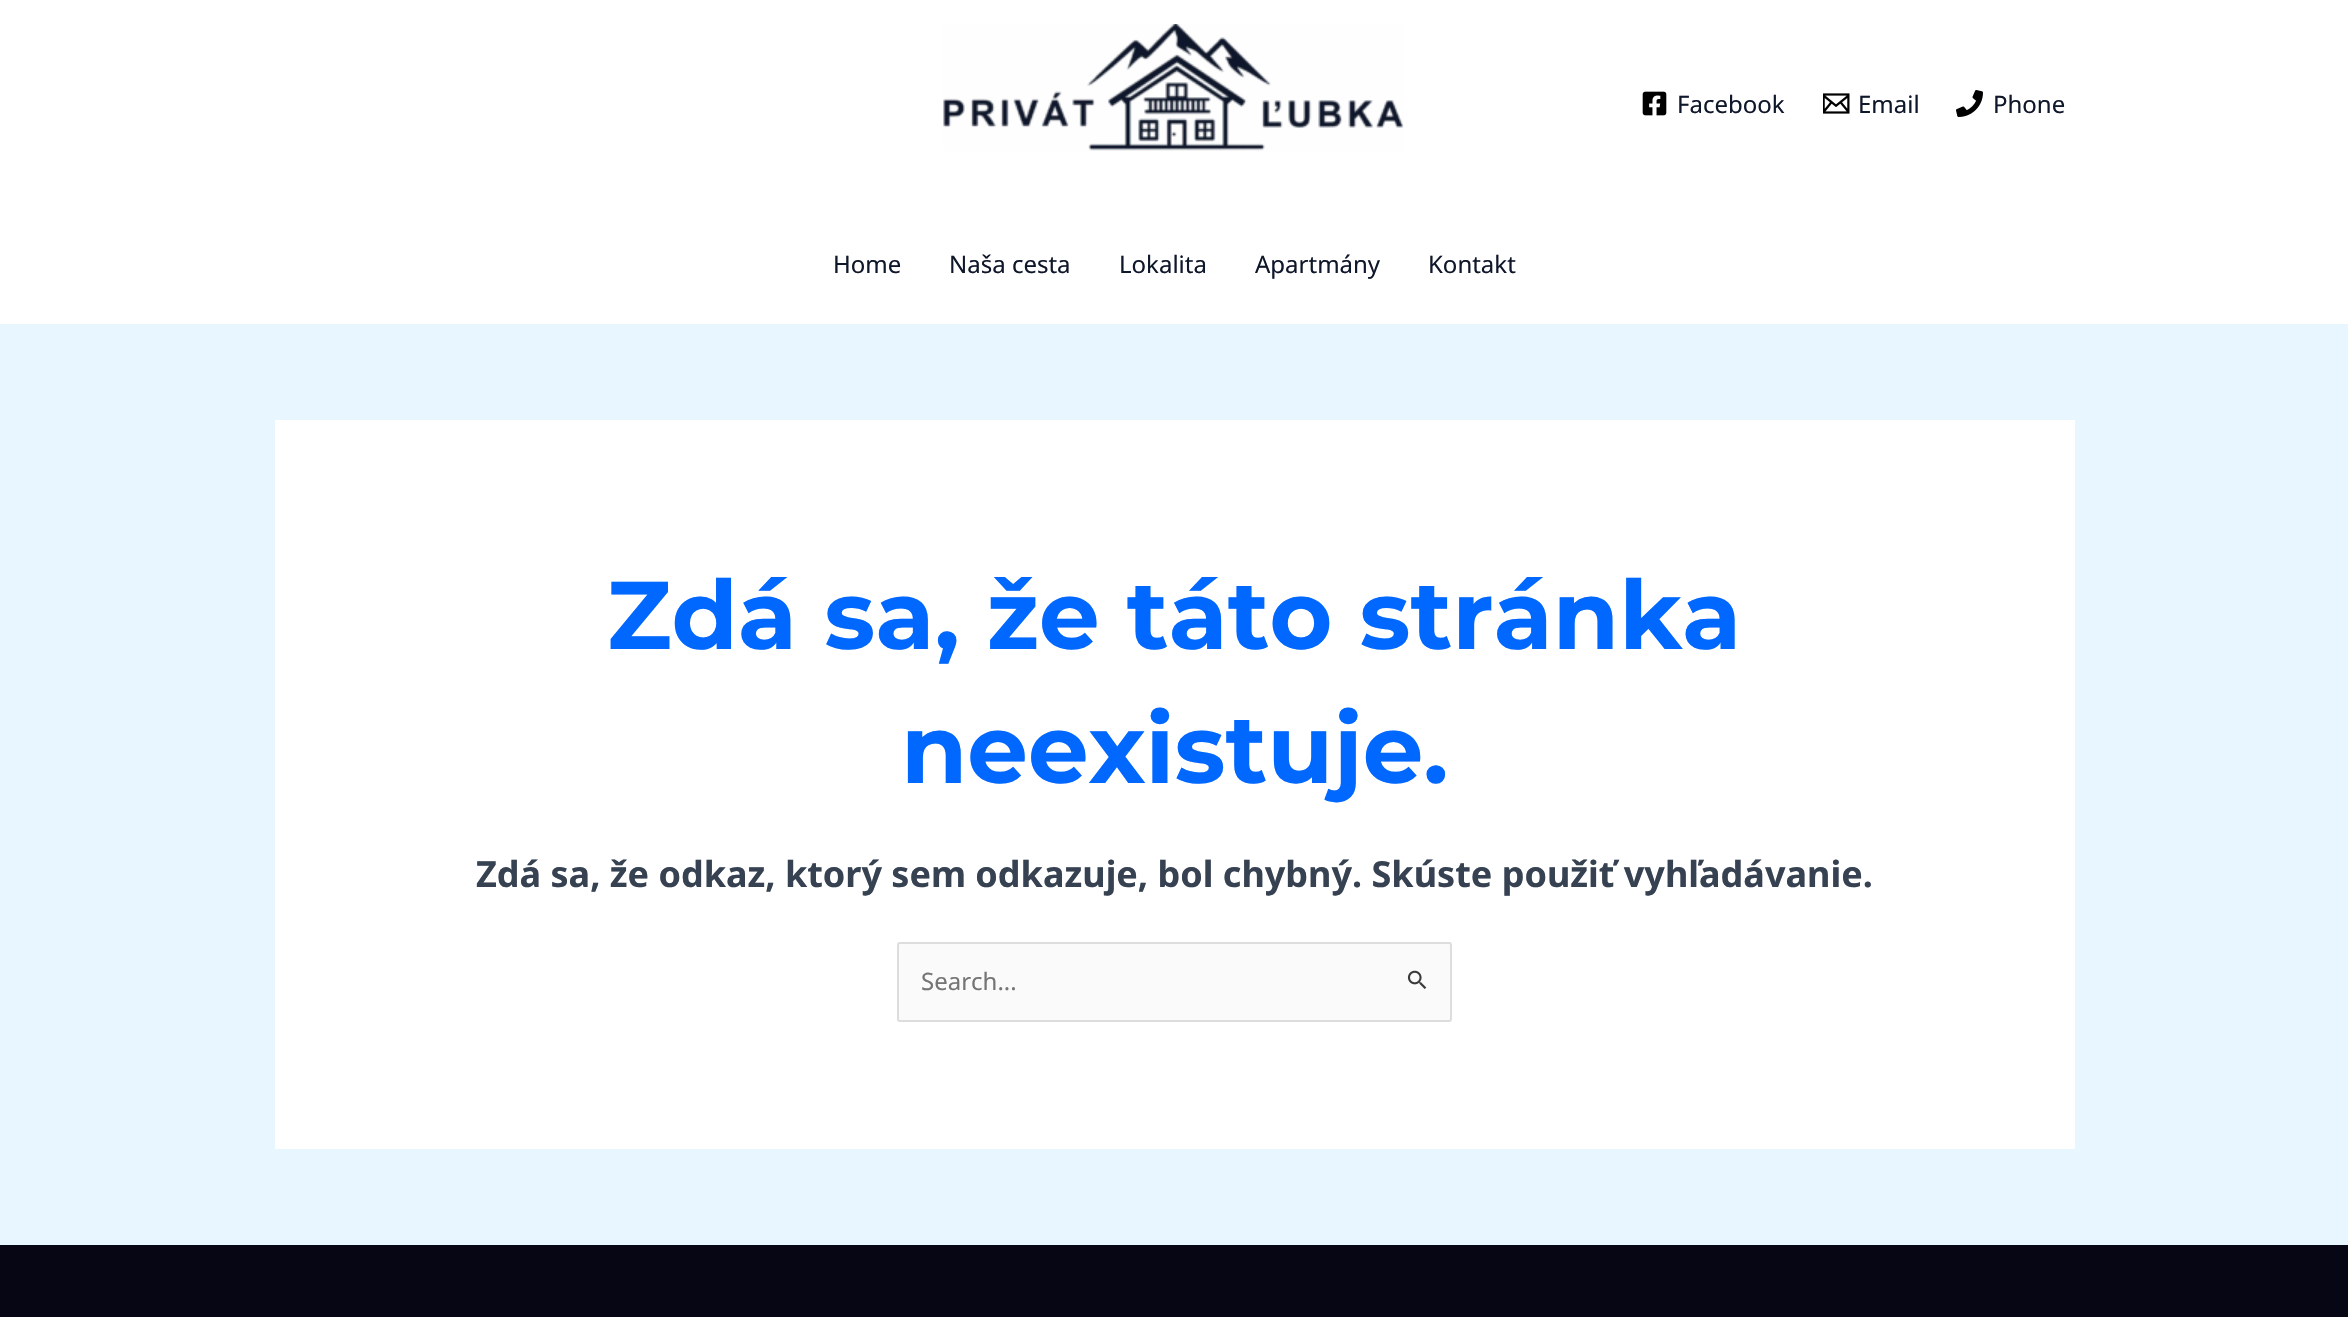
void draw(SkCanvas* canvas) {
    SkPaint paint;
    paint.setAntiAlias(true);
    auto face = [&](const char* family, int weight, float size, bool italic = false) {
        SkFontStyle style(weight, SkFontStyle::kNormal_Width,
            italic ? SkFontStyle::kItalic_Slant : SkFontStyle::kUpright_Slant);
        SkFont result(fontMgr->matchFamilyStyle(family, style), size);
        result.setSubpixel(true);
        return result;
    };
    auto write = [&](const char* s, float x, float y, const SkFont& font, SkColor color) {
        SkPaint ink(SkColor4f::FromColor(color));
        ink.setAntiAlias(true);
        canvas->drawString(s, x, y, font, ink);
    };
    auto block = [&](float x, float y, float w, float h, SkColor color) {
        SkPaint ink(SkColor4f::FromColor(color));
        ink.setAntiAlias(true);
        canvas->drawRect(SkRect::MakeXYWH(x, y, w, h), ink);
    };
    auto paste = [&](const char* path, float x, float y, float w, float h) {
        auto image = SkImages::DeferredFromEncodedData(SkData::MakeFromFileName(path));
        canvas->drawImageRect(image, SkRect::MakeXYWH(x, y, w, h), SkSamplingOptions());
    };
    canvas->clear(SkColorSetRGB(231, 246, 255));
    block(0, 0, 2348, 324, SK_ColorWHITE);
    paste("pic1.png", 943, 24, 461, 127);
    paste("pic2.png", 1642, 91, 25, 25);
    auto kFont1 = face("Noto Sans", 400, 24);
    write("Facebook", 1677, 113, kFont1, SkColorSetRGB(15, 23, 42));
    paste("pic3.png", 1823, 93, 27, 21);
    write("Email", 1858, 113, kFont1, SkColorSetRGB(15, 23, 42));
    paste("pic4.png", 1956, 90, 27, 27);
    write("Phone", 1993, 113, kFont1, SkColorSetRGB(15, 23, 42));
    write("Home", 833, 273, kFont1, SkColorSetRGB(15, 23, 42));
    write("Naša cesta", 949, 273, kFont1, SkColorSetRGB(15, 23, 42));
    write("Lokalita", 1119, 273, kFont1, SkColorSetRGB(15, 23, 42));
    write("Apartmány", 1255, 273, kFont1, SkColorSetRGB(15, 23, 42));
    write("Kontakt", 1428, 273, kFont1, SkColorSetRGB(15, 23, 42));
    block(275, 420, 1800, 729, SK_ColorWHITE);
    auto kFont2 = face("Montserrat", 100, 96);
    write("Zdá sa, že táto stránka", 607, 649, kFont2, SkColorSetRGB(0, 103, 255));
    write("neexistuje.", 901, 783, kFont2, SkColorSetRGB(0, 103, 255));
    auto kFont3 = face("Noto Sans", 700, 36);
    write("Zdá sa, že odkaz, ktorý sem odkazuje, bol chybný. Skúste použiť vyhľadávanie.", 476, 887, kFont3, SkColorSetRGB(54, 65, 81));
    paint.setColor(SkColorSetRGB(250, 250, 250));
    canvas->drawRoundRect(SkRect::MakeXYWH(898, 943, 553, 78), 2, 2, paint);
    paint.setStyle(SkPaint::kStroke_Style);
    paint.setStrokeWidth(2);
    paint.setColor(SkColorSetRGB(221, 221, 221));
    canvas->drawRoundRect(SkRect::MakeXYWH(898, 943, 553, 78), 2, 2, paint);
    write("Search...", 921, 990, kFont1, SkColorSetRGB(117, 117, 117));
    paste("pic5.png", 1407, 970, 20, 19);
    block(0, 1245, 2348, 72, SkColorSetRGB(7, 6, 20));
}
